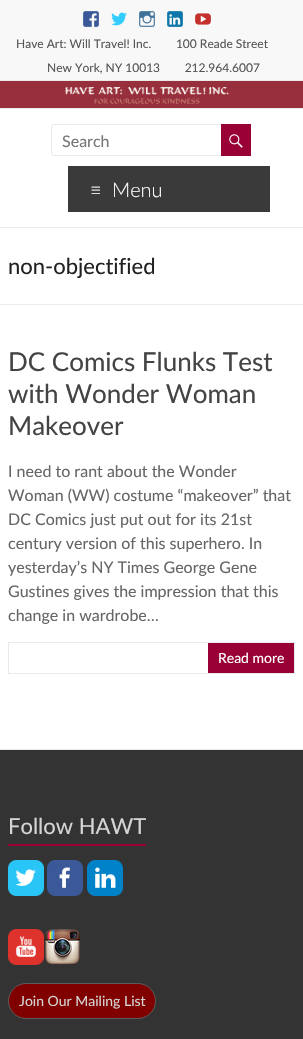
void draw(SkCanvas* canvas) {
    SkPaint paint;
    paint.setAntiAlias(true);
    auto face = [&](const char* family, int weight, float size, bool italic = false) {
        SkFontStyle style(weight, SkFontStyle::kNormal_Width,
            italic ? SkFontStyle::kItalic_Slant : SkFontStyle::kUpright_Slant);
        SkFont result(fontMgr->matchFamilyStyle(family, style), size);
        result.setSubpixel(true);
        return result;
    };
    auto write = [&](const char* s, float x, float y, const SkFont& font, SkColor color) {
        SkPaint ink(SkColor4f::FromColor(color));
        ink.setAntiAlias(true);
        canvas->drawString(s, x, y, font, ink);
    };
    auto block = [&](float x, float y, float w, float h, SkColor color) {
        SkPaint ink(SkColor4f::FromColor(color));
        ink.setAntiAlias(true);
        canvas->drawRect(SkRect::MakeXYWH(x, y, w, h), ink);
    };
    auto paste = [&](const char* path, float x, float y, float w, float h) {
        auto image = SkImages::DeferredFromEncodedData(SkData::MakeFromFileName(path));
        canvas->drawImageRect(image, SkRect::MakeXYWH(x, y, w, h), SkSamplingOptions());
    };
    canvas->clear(SK_ColorWHITE);
    block(0, 0, 303, 80, SkColorSetRGB(248, 248, 248));
    block(0, 80, 303, 1, SkColorSetRGB(234, 234, 234));
    paste("pic1.png", 83, 11, 16, 16);
    paste("pic2.png", 111, 12, 16, 14);
    paste("pic3.png", 139, 11, 16, 16);
    paste("pic4.png", 167, 11, 16, 16);
    paste("pic5.png", 195, 13, 16, 12);
    auto kFont1 = face("Lato", 400, 12);
    write("Have Art: Will Travel! Inc.        100 Reade Street", 16, 48, kFont1, SkColorSetRGB(85, 85, 85));
    write("New York, NY 10013        212.964.6007", 47, 72, kFont1, SkColorSetRGB(85, 85, 85));
    paste("pic6.png", 0, 81, 303, 27);
    block(0, 108, 303, 1, SkColorSetRGB(234, 234, 234));
    block(0, 227, 303, 1, SkColorSetRGB(234, 234, 234));
    paint.setStyle(SkPaint::kStroke_Style);
    paint.setStrokeWidth(1);
    paint.setColor(SkColorSetRGB(234, 234, 234));
    canvas->drawRoundRect(SkRect::MakeXYWH(51.5f, 124.5f, 171, 31), 2.5f, 2.5f, paint);
    auto kFont2 = face("Lato", 400, 16);
    write("Search", 62, 147, kFont2, SkColorSetRGB(117, 117, 117));
    block(221, 124, 30, 32, SkColorSetRGB(153, 0, 53));
    paste("pic7.png", 229, 134, 14, 14);
    block(68, 166, 202, 46, SkColorSetRGB(58, 58, 58));
    auto kFont3 = face("Lato", 300, 20);
    write("≡", 90, 197, kFont3, SK_ColorWHITE);
    write("Menu", 112, 197, kFont3, SK_ColorWHITE);
    block(0, 304, 303, 1, SkColorSetRGB(234, 234, 234));
    auto kFont4 = face("Lato", 400, 22);
    write("non-objectified", 8, 274, kFont4, SkColorSetRGB(34, 34, 34));
    auto kFont5 = face("Lato", 400, 26);
    write("DC Comics Flunks Test", 8, 371, kFont5, SkColorSetRGB(68, 68, 68));
    write("with Wonder Woman", 8, 403, kFont5, SkColorSetRGB(68, 68, 68));
    write("Makeover", 8, 435, kFont5, SkColorSetRGB(68, 68, 68));
    write("I need to rant about the Wonder", 8, 477, kFont2, SkColorSetRGB(102, 102, 102));
    write("Woman (WW) costume “makeover” that", 8, 501, kFont2, SkColorSetRGB(102, 102, 102));
    write("DC Comics just put out for its 21st", 8, 525, kFont2, SkColorSetRGB(102, 102, 102));
    write("century version of this superhero. In", 8, 549, kFont2, SkColorSetRGB(102, 102, 102));
    write("yesterday’s NY Times George Gene", 8, 573, kFont2, SkColorSetRGB(102, 102, 102));
    write("Gustines gives the impression that this", 8, 597, kFont2, SkColorSetRGB(102, 102, 102));
    write("change in wardrobe…", 8, 621, kFont2, SkColorSetRGB(102, 102, 102));
    canvas->drawRect(SkRect::MakeXYWH(8.5f, 642.5f, 286, 31), paint);
    block(208, 643, 86, 30, SkColorSetRGB(153, 0, 53));
    auto kFont6 = face("Lato", 400, 14);
    write("Read more", 218, 663, kFont6, SK_ColorWHITE);
    block(0, 750, 303, 289, SkColorSetRGB(51, 51, 51));
    block(0, 749, 303, 1, SkColorSetRGB(234, 234, 234));
    write("Follow HAWT", 8, 834, kFont4, SkColorSetRGB(213, 213, 213));
    block(8, 844, 138, 2, SkColorSetRGB(153, 0, 53));
    paste("pic8.png", 8, 860, 36, 36);
    paste("pic9.png", 47, 860, 36, 36);
    paste("pic10.png", 87, 860, 36, 36);
    paste("pic11.png", 8, 929, 36, 36);
    paste("pic12.png", 45, 929, 35, 36);
    paint.setStyle(SkPaint::kFill_Style);
    paint.setColor(SkColorSetRGB(128, 0, 0));
    canvas->drawRoundRect(SkRect::MakeXYWH(8.5f, 983.5f, 147, 35), 17.5f, 17.5f, paint);
    paint.setStyle(SkPaint::kStroke_Style);
    paint.setColor(SkColorSetRGB(91, 91, 91));
    canvas->drawRoundRect(SkRect::MakeXYWH(8.5f, 983.5f, 147, 35), 17.5f, 17.5f, paint);
    write("Join Our Mailing List", 19, 1006, kFont6, SkColorSetRGB(213, 213, 213));
}
